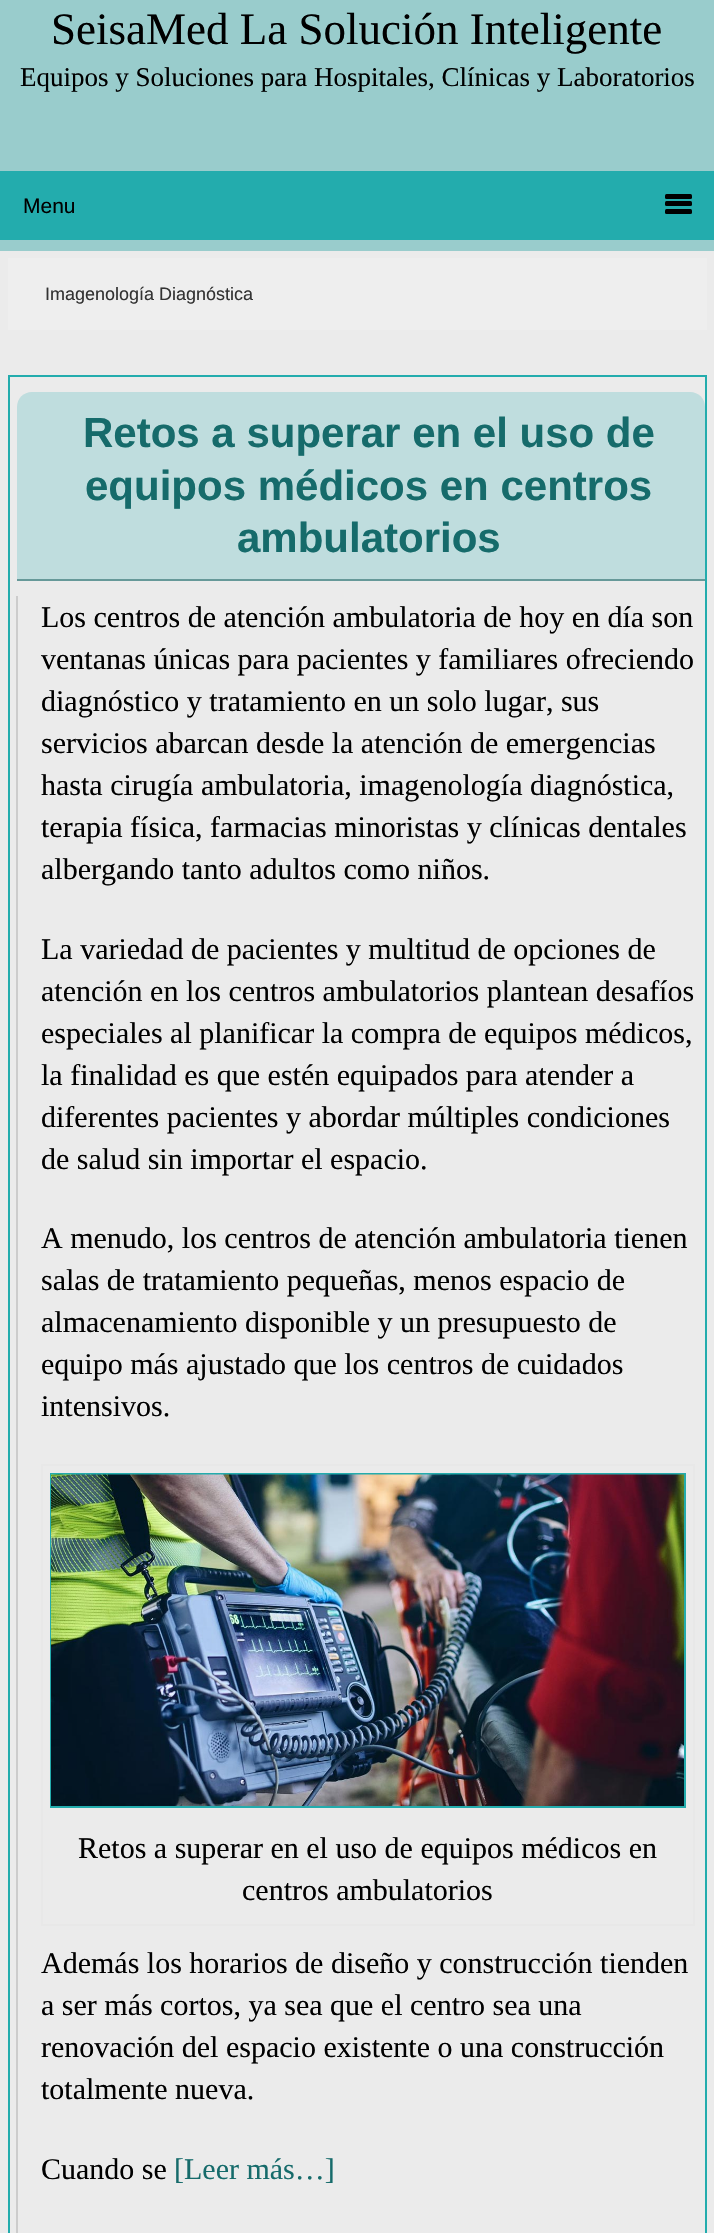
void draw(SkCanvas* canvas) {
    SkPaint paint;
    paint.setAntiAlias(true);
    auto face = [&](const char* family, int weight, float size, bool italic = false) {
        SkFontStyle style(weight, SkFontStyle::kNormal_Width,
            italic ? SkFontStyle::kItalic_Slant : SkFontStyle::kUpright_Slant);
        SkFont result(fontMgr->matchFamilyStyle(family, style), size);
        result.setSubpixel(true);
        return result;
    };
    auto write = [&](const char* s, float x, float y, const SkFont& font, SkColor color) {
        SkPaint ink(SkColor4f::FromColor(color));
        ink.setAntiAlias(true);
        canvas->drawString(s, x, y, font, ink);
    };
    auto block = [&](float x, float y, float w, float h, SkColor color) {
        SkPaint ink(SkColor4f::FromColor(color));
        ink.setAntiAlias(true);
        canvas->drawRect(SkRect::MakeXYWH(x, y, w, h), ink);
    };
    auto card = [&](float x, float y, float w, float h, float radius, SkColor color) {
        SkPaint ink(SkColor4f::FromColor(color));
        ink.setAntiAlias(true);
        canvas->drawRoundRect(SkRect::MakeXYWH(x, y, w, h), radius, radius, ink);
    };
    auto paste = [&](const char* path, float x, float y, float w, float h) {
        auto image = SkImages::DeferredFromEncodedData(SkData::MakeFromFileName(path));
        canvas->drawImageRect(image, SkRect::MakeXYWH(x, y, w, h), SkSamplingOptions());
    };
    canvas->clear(SkColorSetRGB(153, 204, 204));
    auto kFont1 = face("Liberation Serif", 400, 45);
    write("SeisaMed La Solución Inteligente", 51, 44, kFont1, SK_ColorBLACK);
    auto kFont2 = face("Liberation Serif", 400, 27);
    write("Equipos y Soluciones para Hospitales, Clínicas y Laboratorios", 20, 86, kFont2, SK_ColorBLACK);
    block(0, 171, 714, 69, SkColorSetRGB(35, 172, 173));
    auto kFont3 = face("Liberation Sans", 400, 21);
    write("Menu", 23, 213, kFont3, SK_ColorBLACK);
    card(665, 194, 27, 5, 1.5f, SK_ColorBLACK);
    card(665, 201, 27, 5, 1.5f, SK_ColorBLACK);
    card(665, 209, 27, 5, 1.5f, SK_ColorBLACK);
    block(0, 251, 714, 1982, SkColorSetRGB(235, 235, 235));
    block(8, 258, 699, 72, SkColorSetRGB(238, 238, 238));
    auto kFont4 = face("Liberation Sans", 400, 18);
    write("Imagenología Diagnóstica", 45, 300, kFont4, SkColorSetRGB(51, 51, 51));
    paint.setStyle(SkPaint::kStroke_Style);
    paint.setStrokeWidth(2);
    paint.setColor(SkColorSetRGB(35, 172, 173));
    canvas->drawRect(SkRect::MakeXYWH(9, 376, 697, 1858), paint);
    paint.setStyle(SkPaint::kFill_Style);
    paint.setColor(SkColorSetRGB(191, 221, 222));
    canvas->drawPath(SkPathBuilder().moveTo(32, 392).lineTo(690, 392).cubicTo(698.5f, 392, 705, 398.5f, 705, 407).lineTo(705, 581).lineTo(17, 581).lineTo(17, 407).cubicTo(17, 398.5f, 23.5f, 392, 32, 392).close().detach(), paint);
    block(17, 579, 688, 2, SkColorSetRGB(102, 153, 153));
    auto kFont5 = face("Liberation Sans", 700, 42);
    write("Retos a superar en el uso de", 83, 447, kFont5, SkColorSetRGB(22, 107, 107));
    write("equipos médicos en centros", 85, 500, kFont5, SkColorSetRGB(22, 107, 107));
    write("ambulatorios", 237, 552, kFont5, SkColorSetRGB(22, 107, 107));
    paint.setColor(SkColorSetRGB(204, 204, 204));
    canvas->drawPath(SkPathBuilder(SkPathFillType::kEvenOdd).moveTo(16, 596).lineTo(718, 596).lineTo(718, 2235).cubicTo(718, 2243, 712, 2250, 704, 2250).lineTo(32, 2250).cubicTo(23, 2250, 16, 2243, 16, 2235).close().moveTo(18, 596).lineTo(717, 596).lineTo(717, 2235).cubicTo(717, 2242, 711, 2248, 704, 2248).lineTo(32, 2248).cubicTo(24, 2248, 18, 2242, 18, 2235).close().detach(), paint);
    auto kFont6 = face("Liberation Serif", 400, 30);
    write("Los centros de atención ambulatoria de hoy en día son", 41, 627, kFont6, SK_ColorBLACK);
    write("ventanas únicas para pacientes y familiares ofreciendo", 41, 669, kFont6, SK_ColorBLACK);
    write("diagnóstico y tratamiento en un solo lugar, sus", 41, 711, kFont6, SK_ColorBLACK);
    write("servicios abarcan desde la atención de emergencias", 41, 753, kFont6, SK_ColorBLACK);
    write("hasta cirugía ambulatoria, imagenología diagnóstica,", 41, 795, kFont6, SK_ColorBLACK);
    write("terapia física, farmacias minoristas y clínicas dentales", 41, 837, kFont6, SK_ColorBLACK);
    write("albergando tanto adultos como niños.", 41, 879, kFont6, SK_ColorBLACK);
    write("La variedad de pacientes y multitud de opciones de", 41, 959, kFont6, SK_ColorBLACK);
    write("atención en los centros ambulatorios plantean desafíos", 41, 1001, kFont6, SK_ColorBLACK);
    write("especiales al planificar la compra de equipos médicos,", 41, 1043, kFont6, SK_ColorBLACK);
    write("la finalidad es que estén equipados para atender a", 41, 1085, kFont6, SK_ColorBLACK);
    write("diferentes pacientes y abordar múltiples condiciones", 41, 1127, kFont6, SK_ColorBLACK);
    write("de salud sin importar el espacio.", 41, 1169, kFont6, SK_ColorBLACK);
    write("A menudo, los centros de atención ambulatoria tienen", 41, 1248, kFont6, SK_ColorBLACK);
    write("salas de tratamiento pequeñas, menos espacio de", 41, 1290, kFont6, SK_ColorBLACK);
    write("almacenamiento disponible y un presupuesto de", 41, 1332, kFont6, SK_ColorBLACK);
    write("equipo más ajustado que los centros de cuidados", 41, 1374, kFont6, SK_ColorBLACK);
    write("intensivos.", 41, 1416, kFont6, SK_ColorBLACK);
    paint.setStyle(SkPaint::kStroke_Style);
    paint.setColor(SkColorSetRGB(232, 232, 232));
    canvas->drawRect(SkRect::MakeXYWH(42, 1465, 652, 460), paint);
    paint.setColor(SkColorSetRGB(35, 172, 173));
    canvas->drawRect(SkRect::MakeXYWH(51, 1474, 634, 333), paint);
    paste("pic1.png", 51, 1474, 633, 332);
    write("Retos a superar en el uso de equipos médicos en", 78, 1858, kFont6, SK_ColorBLACK);
    write("centros ambulatorios", 242, 1900, kFont6, SK_ColorBLACK);
    write("Además los horarios de diseño y construcción tienden", 41, 1973, kFont6, SK_ColorBLACK);
    write("a ser más cortos, ya sea que el centro sea una", 41, 2015, kFont6, SK_ColorBLACK);
    write("renovación del espacio existente o una construcción", 41, 2057, kFont6, SK_ColorBLACK);
    write("totalmente nueva.", 41, 2099, kFont6, SK_ColorBLACK);
    write("Cuando se", 41, 2179, kFont6, SK_ColorBLACK);
    write("[Leer más…]", 174, 2179, kFont6, SkColorSetRGB(22, 107, 107));
}
